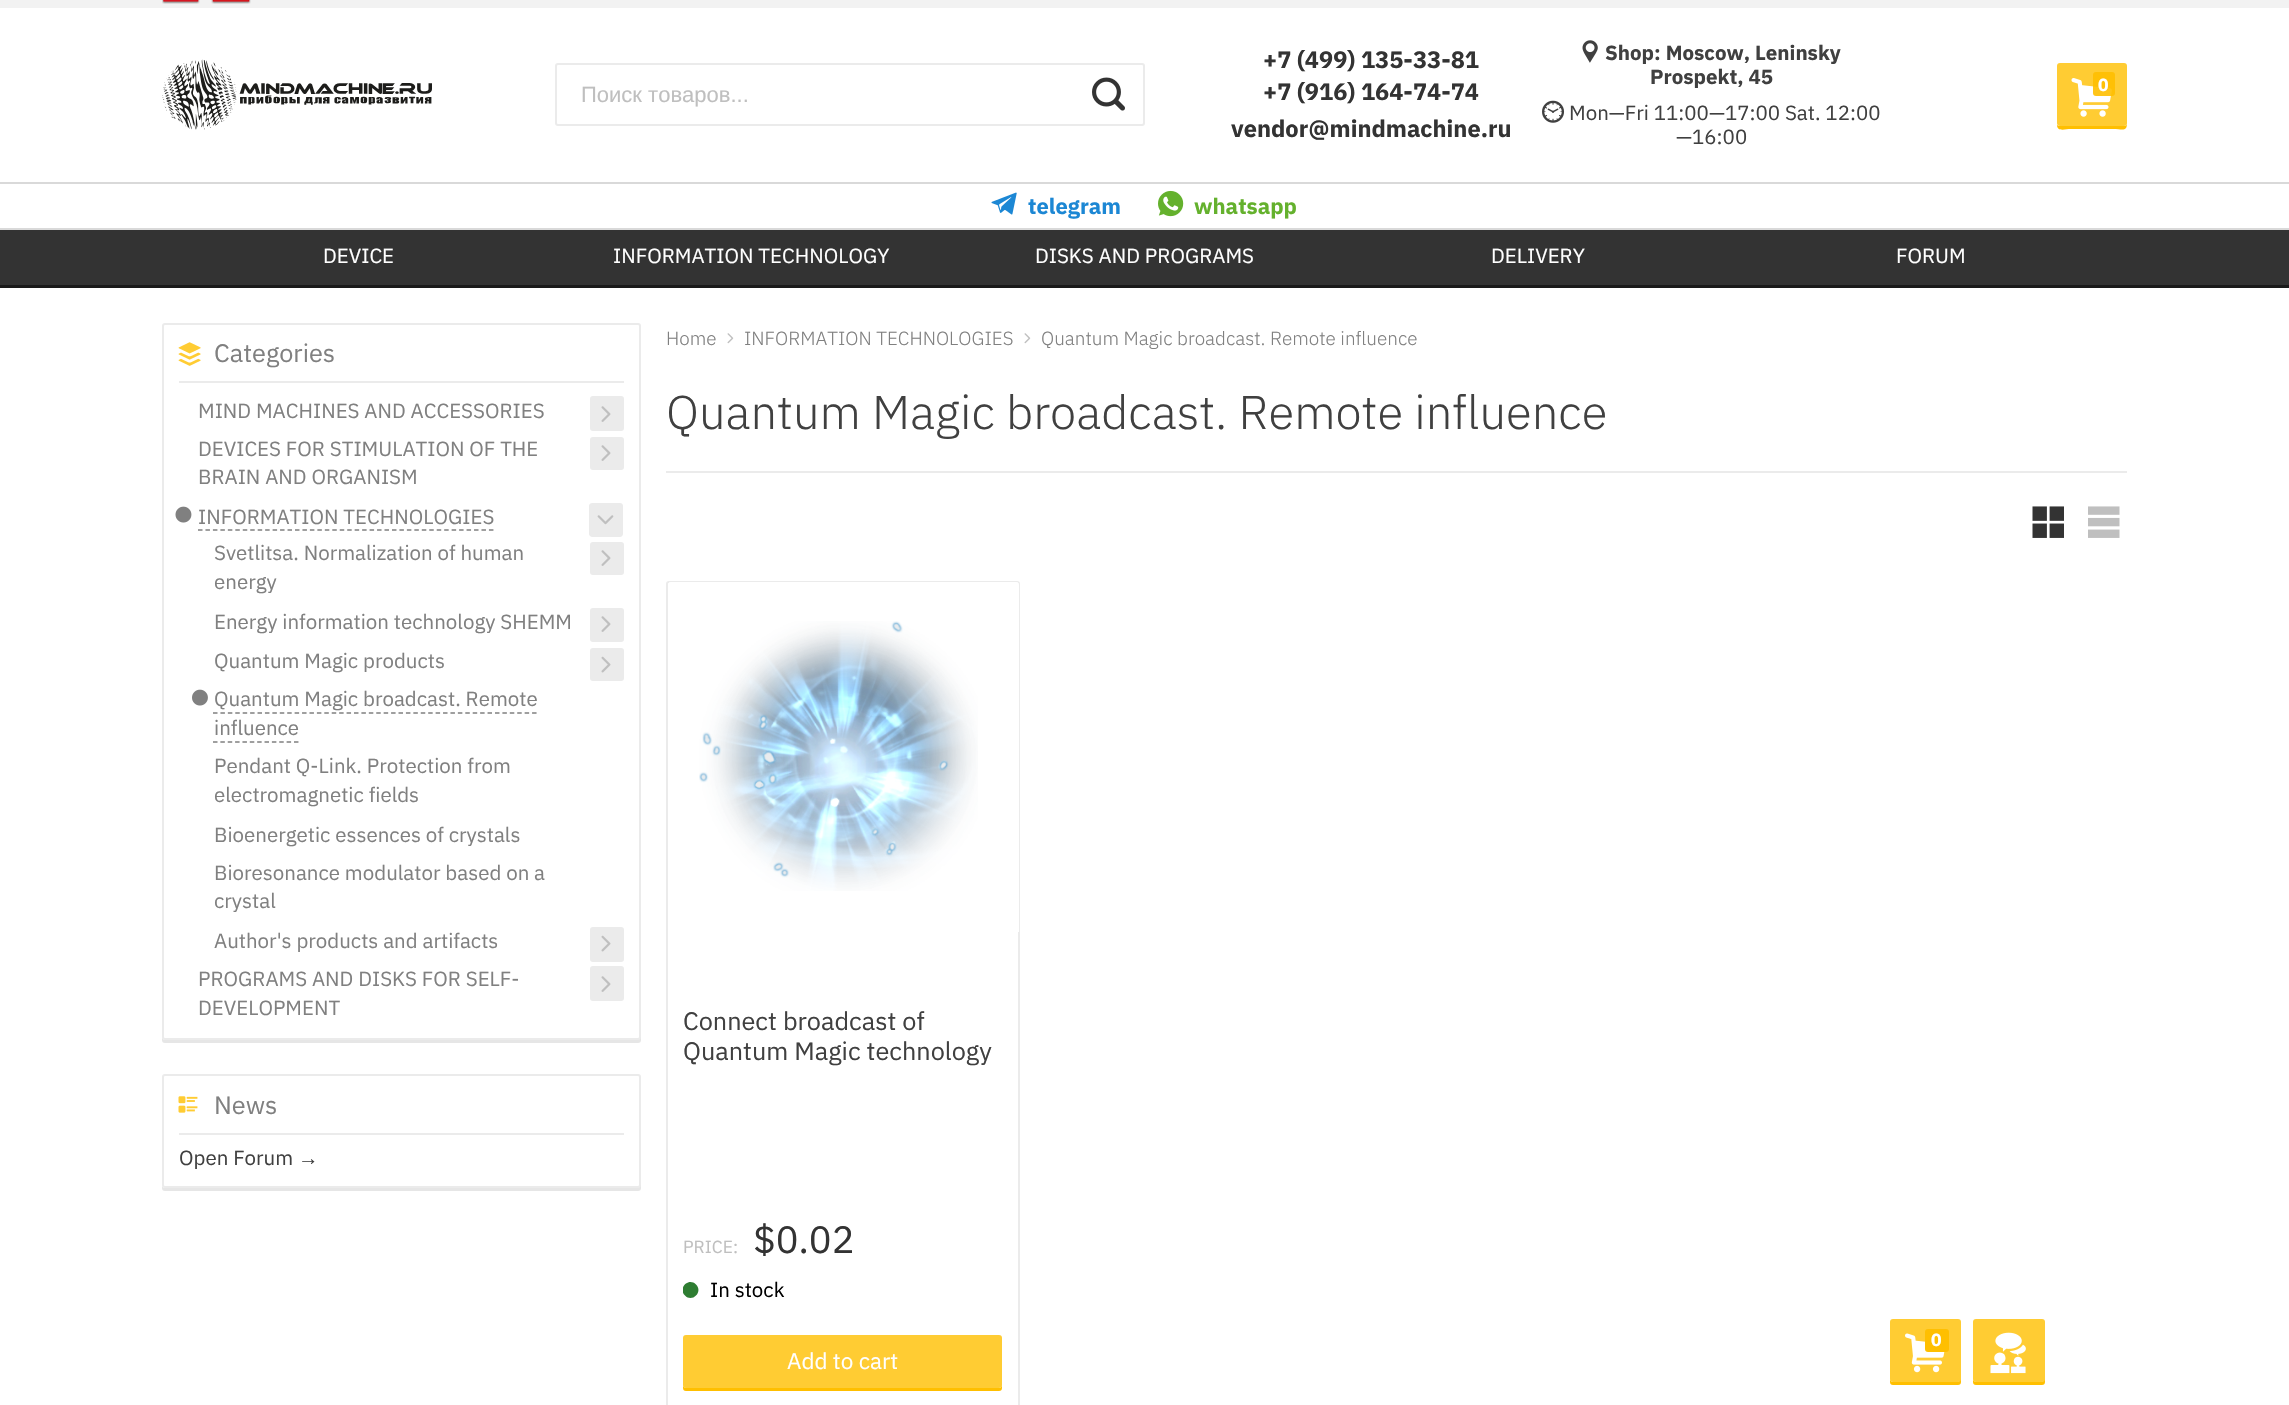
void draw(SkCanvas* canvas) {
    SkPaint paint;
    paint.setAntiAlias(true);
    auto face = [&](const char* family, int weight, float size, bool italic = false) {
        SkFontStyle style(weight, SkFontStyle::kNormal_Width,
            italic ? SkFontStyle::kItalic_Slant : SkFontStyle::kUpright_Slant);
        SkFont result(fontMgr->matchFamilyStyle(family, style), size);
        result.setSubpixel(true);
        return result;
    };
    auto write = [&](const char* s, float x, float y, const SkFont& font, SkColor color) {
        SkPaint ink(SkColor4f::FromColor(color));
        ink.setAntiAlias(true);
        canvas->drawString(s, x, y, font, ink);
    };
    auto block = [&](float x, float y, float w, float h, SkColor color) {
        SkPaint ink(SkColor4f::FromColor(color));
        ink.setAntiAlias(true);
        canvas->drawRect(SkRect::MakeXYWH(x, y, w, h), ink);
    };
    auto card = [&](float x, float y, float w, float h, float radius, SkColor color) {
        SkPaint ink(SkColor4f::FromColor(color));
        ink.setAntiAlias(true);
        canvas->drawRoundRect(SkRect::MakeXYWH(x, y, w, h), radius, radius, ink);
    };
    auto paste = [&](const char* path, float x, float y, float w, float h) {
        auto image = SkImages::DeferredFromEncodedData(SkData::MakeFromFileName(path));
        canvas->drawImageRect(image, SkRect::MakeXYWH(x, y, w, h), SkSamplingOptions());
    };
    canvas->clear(SK_ColorWHITE);
    block(0, 0, 2289, 8, SkColorSetRGB(242, 242, 242));
    paste("pic1.png", 162, 0, 38, 4);
    paste("pic2.png", 211, 0, 40, 4);
    paste("pic3.png", 162, 59, 270, 71);
    paint.setStyle(SkPaint::kStroke_Style);
    paint.setStrokeWidth(2);
    paint.setColor(SkColorSetRGB(235, 235, 235));
    canvas->drawRoundRect(SkRect::MakeXYWH(556, 64, 588, 61), 2, 2, paint);
    auto kFont1 = face("Liberation Sans", 400, 22);
    write("Поиск товаров...", 581, 102, kFont1, SkColorSetRGB(191, 191, 191));
    paste("pic4.png", 1092, 77, 33, 34);
    auto kFont2 = face("IBM Plex Sans", 700, 23.6f);
    write("+7 (499) 135-33-81", 1263, 68, kFont2, SkColorSetRGB(51, 51, 51));
    write("+7 (916) 164-74-74", 1263, 100, kFont2, SkColorSetRGB(51, 51, 51));
    write("vendor@mindmachine.ru", 1231, 137, kFont2, SkColorSetRGB(51, 51, 51));
    paste("pic5.png", 1582, 40, 16, 23);
    auto kFont3 = face("IBM Plex Sans", 700, 20.5f);
    write("Shop: Moscow, Leninsky", 1605, 60, kFont3, SkColorSetRGB(64, 64, 64));
    write("Prospekt, 45", 1650, 84, kFont3, SkColorSetRGB(64, 64, 64));
    paste("pic6.png", 1542, 100, 23, 23);
    auto kFont4 = face("IBM Plex Sans", 400, 20.5f);
    write("Mon—Fri 11:00—17:00 Sat. 12:00", 1569, 120, kFont4, SkColorSetRGB(64, 64, 64));
    write("—16:00", 1676, 144, kFont4, SkColorSetRGB(64, 64, 64));
    paint.setStyle(SkPaint::kFill_Style);
    paint.setColor(SkColorSetRGB(255, 191, 0));
    canvas->drawPath(SkPathBuilder().moveTo(2057, 125).cubicTo(2057, 132, 2065, 129, 2071, 129).lineTo(2113, 129).cubicTo(2123, 129, 2127, 132, 2127, 123).cubicTo(2127, 125, 2126, 126, 2124, 126).lineTo(2059, 126).close().detach(), paint);
    card(2057, 63, 70, 63, 3, SkColorSetRGB(255, 204, 51));
    paste("pic7.png", 2071, 78, 41, 39);
    card(2093, 72, 22, 24, 3, SkColorSetARGB(230, 255, 191, 0));
    auto kFont5 = face("IBM Plex Sans", 700, 17.5f);
    write("0", 2098, 91, kFont5, SK_ColorWHITE);
    block(0, 182, 2289, 2, SkColorSetRGB(217, 217, 217));
    block(0, 228, 2289, 2, SkColorSetRGB(217, 217, 217));
    paste("pic8.png", 991, 192, 26, 23);
    auto kFont6 = face("IBM Plex Sans", 700, 22);
    write("telegram", 1028, 214, kFont6, SkColorSetRGB(28, 135, 212));
    paste("pic9.png", 1158, 190, 26, 27);
    write("whatsapp", 1194, 214, kFont6, SkColorSetRGB(100, 177, 45));
    block(0, 230, 2289, 55, SkColorSetRGB(51, 51, 51));
    block(0, 285, 2289, 3, SkColorSetRGB(26, 26, 26));
    write("DEVICE", 323, 263, kFont4, SK_ColorWHITE);
    write("INFORMATION TECHNOLOGY", 613, 263, kFont4, SK_ColorWHITE);
    write("DISKS AND PROGRAMS", 1035, 263, kFont4, SK_ColorWHITE);
    write("DELIVERY", 1491, 263, kFont4, SK_ColorWHITE);
    write("FORUM", 1896, 263, kFont4, SK_ColorWHITE);
    paint.setColor(SkColorSetRGB(230, 230, 230));
    canvas->drawPath(SkPathBuilder().moveTo(162, 1036).lineTo(162, 1040).cubicTo(162, 1042, 163, 1043, 165, 1043).lineTo(638, 1043).cubicTo(640, 1043, 641, 1042, 641, 1040).lineTo(641, 329).lineTo(640, 327).lineTo(640, 1036).cubicTo(640, 1038, 639, 1040, 637, 1040).lineTo(165, 1040).cubicTo(163, 1040, 162, 1038, 162, 1036).close().detach(), paint);
    paint.setColor(SK_ColorWHITE);
    canvas->drawRoundRect(SkRect::MakeXYWH(163, 324, 477, 715), 2, 2, paint);
    paint.setStyle(SkPaint::kStroke_Style);
    paint.setColor(SkColorSetRGB(235, 235, 235));
    canvas->drawRoundRect(SkRect::MakeXYWH(163, 324, 477, 715), 2, 2, paint);
    paste("pic10.png", 178, 342, 23, 24);
    auto kFont7 = face("IBM Plex Sans", 400, 25.25f);
    write("Categories", 214, 362, kFont7, SkColorSetRGB(128, 128, 128));
    block(179, 381, 445, 2, SkColorSetRGB(235, 235, 235));
    write("MIND MACHINES AND ACCESSORIES", 198, 418, kFont4, SkColorSetRGB(128, 128, 128));
    card(590, 396, 34, 35, 3, SkColorSetRGB(235, 235, 235));
    paste("pic11.png", 601, 406, 10, 16);
    write("DEVICES FOR STIMULATION OF THE", 198, 456, kFont4, SkColorSetRGB(128, 128, 128));
    write("BRAIN AND ORGANISM", 198, 484, kFont4, SkColorSetRGB(128, 128, 128));
    card(590, 437, 34, 33, 3, SkColorSetRGB(235, 235, 235));
    paste("pic11.png", 601, 445, 10, 16);
    paste("pic12.png", 175, 506, 17, 17);
    write("INFORMATION TECHNOLOGIES", 198, 524, kFont4, SkColorSetRGB(128, 128, 128));
    paint.setStrokeWidth(1.5f);
    paint.setColor(SkColorSetRGB(128, 128, 128));
    paint.setPathEffect(SkDashPathEffect::Make({{4.5f, 2.96f}}, 0));
    canvas->drawPath(SkPathBuilder().moveTo(198, 530).lineTo(493.5f, 530).detach(), paint);
    paint.setPathEffect(nullptr);
    paint.setStyle(SkPaint::kFill_Style);
    paint.setColor(SkColorSetRGB(235, 235, 235));
    canvas->drawPath(SkPathBuilder().moveTo(623, 506).lineTo(623, 534).cubicTo(623, 535.5f, 621.5f, 537, 620, 537).lineTo(592.5f, 537).cubicTo(590.5f, 537, 589, 535.5f, 589, 534).lineTo(589, 506).cubicTo(589, 504, 590.5f, 503, 592.5f, 503).lineTo(620, 503).cubicTo(621.5f, 503, 623, 504, 623, 506).close().detach(), paint);
    paste("pic13.png", 597, 515, 17, 10);
    write("Svetlitsa. Normalization of human", 214, 560, kFont4, SkColorSetRGB(128, 128, 128));
    write("energy", 214, 589, kFont4, SkColorSetRGB(128, 128, 128));
    card(590, 542, 34, 33, 3, SkColorSetRGB(235, 235, 235));
    paste("pic11.png", 601, 550, 10, 16);
    write("Energy information technology SHEMM", 214, 629, kFont4, SkColorSetRGB(128, 128, 128));
    card(590, 608, 34, 34, 3, SkColorSetRGB(235, 235, 235));
    paste("pic11.png", 601, 616, 10, 16);
    write("Quantum Magic products", 214, 668, kFont4, SkColorSetRGB(128, 128, 128));
    card(590, 648, 34, 33, 3, SkColorSetRGB(235, 235, 235));
    paste("pic14.png", 601, 656, 10, 17);
    paste("pic15.png", 192, 689, 16, 17);
    write("Quantum Magic broadcast. Remote", 214, 706, kFont4, SkColorSetRGB(128, 128, 128));
    paint.setStyle(SkPaint::kStroke_Style);
    paint.setColor(SkColorSetRGB(128, 128, 128));
    paint.setPathEffect(SkDashPathEffect::Make({{4.5f, 2.92f}}, 0));
    canvas->drawPath(SkPathBuilder().moveTo(213, 713).lineTo(537, 713).detach(), paint);
    paint.setPathEffect(nullptr);
    write("influence", 214, 735, kFont4, SkColorSetRGB(128, 128, 128));
    paint.setPathEffect(SkDashPathEffect::Make({{4.5f, 2.86f}}, 0));
    canvas->drawPath(SkPathBuilder().moveTo(213, 742).lineTo(298.5f, 742).detach(), paint);
    paint.setPathEffect(nullptr);
    write("Pendant Q-Link. Protection from", 214, 773, kFont4, SkColorSetRGB(128, 128, 128));
    write("electromagnetic fields", 214, 802, kFont4, SkColorSetRGB(128, 128, 128));
    write("Bioenergetic essences of crystals", 214, 842, kFont4, SkColorSetRGB(128, 128, 128));
    write("Bioresonance modulator based on a", 214, 880, kFont4, SkColorSetRGB(128, 128, 128));
    write("crystal", 214, 908, kFont4, SkColorSetRGB(128, 128, 128));
    write("Author's products and artifacts", 214, 948, kFont4, SkColorSetRGB(128, 128, 128));
    card(590, 927, 34, 35, 3, SkColorSetRGB(235, 235, 235));
    paste("pic14.png", 601, 935, 10, 17);
    write("PROGRAMS AND DISKS FOR SELF-", 198, 986, kFont4, SkColorSetRGB(128, 128, 128));
    write("DEVELOPMENT", 198, 1015, kFont4, SkColorSetRGB(128, 128, 128));
    card(590, 966, 34, 35, 3, SkColorSetRGB(235, 235, 235));
    paste("pic11.png", 601, 976, 10, 16);
    paint.setStyle(SkPaint::kFill_Style);
    paint.setColor(SkColorSetRGB(230, 230, 230));
    canvas->drawPath(SkPathBuilder().moveTo(162, 1185).lineTo(162, 1188).cubicTo(162, 1190, 163, 1191, 165, 1191).lineTo(638, 1191).cubicTo(640, 1191, 641, 1190, 641, 1188).lineTo(641, 1080).lineTo(640, 1078).lineTo(640, 1185).cubicTo(640, 1187, 639, 1188, 637, 1188).lineTo(165, 1188).cubicTo(163, 1188, 162, 1187, 162, 1185).close().detach(), paint);
    paint.setColor(SK_ColorWHITE);
    canvas->drawRoundRect(SkRect::MakeXYWH(163, 1075, 477, 112), 2, 2, paint);
    paint.setStyle(SkPaint::kStroke_Style);
    paint.setStrokeWidth(2);
    paint.setColor(SkColorSetRGB(235, 235, 235));
    canvas->drawRoundRect(SkRect::MakeXYWH(163, 1075, 477, 112), 2, 2, paint);
    paste("pic16.png", 178, 1096, 20, 17);
    write("News", 214, 1114, kFont7, SkColorSetRGB(128, 128, 128));
    block(179, 1133, 445, 2, SkColorSetRGB(235, 235, 235));
    write("Open Forum", 179, 1165, kFont4, SkColorSetRGB(64, 64, 64));
    auto kFont8 = face("Liberation Sans", 400, 20.5f);
    write("→", 298, 1165, kFont8, SkColorSetRGB(64, 64, 64));
    auto kFont9 = face("IBM Plex Sans", 300, 18.9f);
    write("Home", 666, 345, kFont9, SkColorSetRGB(128, 128, 128));
    paste("pic17.png", 727, 333, 7, 11);
    write("INFORMATION TECHNOLOGIES", 744, 345, kFont9, SkColorSetRGB(128, 128, 128));
    paste("pic17.png", 1024, 333, 7, 11);
    write("Quantum Magic broadcast. Remote influence", 1041, 345, kFont9, SkColorSetRGB(128, 128, 128));
    block(666, 471, 1461, 2, SkColorSetRGB(235, 235, 235));
    auto kFont10 = face("IBM Plex Sans", 300, 47.25f);
    write("Quantum Magic broadcast. Remote influence", 666, 429, kFont10, SkColorSetRGB(64, 64, 64));
    paste("pic18.png", 2032, 506, 32, 32);
    paste("pic19.png", 2088, 506, 32, 32);
    canvas->drawRoundRect(SkRect::MakeXYWH(667, 582, 352, 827), 2, 2, paint);
    paint.setStyle(SkPaint::kFill_Style);
    paint.setColor(SK_ColorWHITE);
    canvas->drawPath(SkPathBuilder().moveTo(671, 582).lineTo(1016, 582).cubicTo(1017.5f, 582, 1019, 583.5f, 1019, 585).lineTo(1019, 932).lineTo(668, 932).lineTo(668, 585).cubicTo(668, 583.5f, 669.5f, 582, 671, 582).close().detach(), paint);
    canvas->drawPath(SkPathBuilder(SkPathFillType::kEvenOdd).moveTo(671, 582).cubicTo(669, 582, 668, 583, 668, 585).lineTo(668, 932).lineTo(1019, 932).lineTo(1019, 585).cubicTo(1019, 583, 1018, 582, 1016, 582).close().moveTo(683, 597).lineTo(683, 917).lineTo(1004, 917).lineTo(1004, 597).close().detach(), paint);
    paste("pic20.png", 699, 621, 279, 270);
    write("Connect broadcast of", 683, 1030, kFont7, SkColorSetRGB(64, 64, 64));
    write("Quantum Magic technology", 683, 1060, kFont7, SkColorSetRGB(64, 64, 64));
    auto kFont11 = face("IBM Plex Sans", 400, 17.5f);
    write("PRICE:", 683, 1253, kFont11, SkColorSetRGB(191, 191, 191));
    auto kFont12 = face("IBM Plex Sans", 400, 38);
    write("$0.02", 753, 1253, kFont12, SkColorSetRGB(51, 51, 51));
    canvas->save();
    canvas->clipRect(SkRect::MakeXYWH(683, 1275, 102, 29));
    paint.setColor(SkColorSetRGB(46, 125, 50));
    canvas->drawPath(SkPathBuilder().moveTo(685, 1295.5f).cubicTo(677.5f, 1288.5f, 688.5f, 1277, 696, 1284.5f).cubicTo(703.5f, 1292, 692, 1303, 685, 1295.5f).close().detach(), paint);
    canvas->restore();
    write("In stock", 710, 1297, kFont4, SK_ColorBLACK);
    paint.setColor(SkColorSetRGB(255, 191, 0));
    canvas->drawPath(SkPathBuilder().moveTo(683, 1386).lineTo(683, 1388).cubicTo(683, 1390, 684, 1391, 686, 1391).lineTo(999, 1391).cubicTo(1001, 1391, 1002, 1390, 1002, 1388).lineTo(1002, 1384).cubicTo(1002, 1386, 1001, 1388, 999, 1388).lineTo(686, 1388).cubicTo(685, 1388, 684, 1387, 683, 1386).close().detach(), paint);
    card(683, 1335, 319, 53, 3, SkColorSetRGB(255, 204, 51));
    auto kFont13 = face("IBM Plex Sans", 400, 22.5f);
    write("Add to cart", 787, 1369, kFont13, SK_ColorWHITE);
    canvas->drawPath(SkPathBuilder().moveTo(1890, 1378).lineTo(1890, 1382).cubicTo(1890, 1384, 1891, 1385, 1893, 1385).lineTo(1958, 1385).cubicTo(1960, 1385, 1961, 1384, 1961, 1382).lineTo(1961, 1325).lineTo(1960, 1323).lineTo(1960, 1378).cubicTo(1960, 1380, 1959, 1382, 1957, 1382).lineTo(1893, 1382).cubicTo(1891, 1382, 1890, 1380, 1890, 1378).close().detach(), paint);
    card(1890, 1319, 71, 63, 3, SkColorSetRGB(255, 204, 51));
    paste("pic21.png", 1905, 1333, 40, 40);
    card(1925, 1329, 24, 23, 3, SkColorSetRGB(255, 191, 0));
    write("0", 1931, 1346, kFont5, SK_ColorWHITE);
    canvas->drawPath(SkPathBuilder().moveTo(1973, 1380).lineTo(1973, 1382).cubicTo(1973, 1384, 1974, 1385, 1976, 1385).lineTo(2042, 1385).cubicTo(2044, 1385, 2045, 1384, 2045, 1382).lineTo(2045, 1325).lineTo(2044, 1323).lineTo(2044, 1378).cubicTo(2044, 1380, 2043, 1382, 2041, 1382).lineTo(1976, 1382).cubicTo(1975, 1382, 1974, 1381, 1973, 1380).close().detach(), paint);
    card(1973, 1319, 72, 63, 3, SkColorSetRGB(255, 204, 51));
    paste("pic22.png", 1990, 1332, 36, 42);
}
